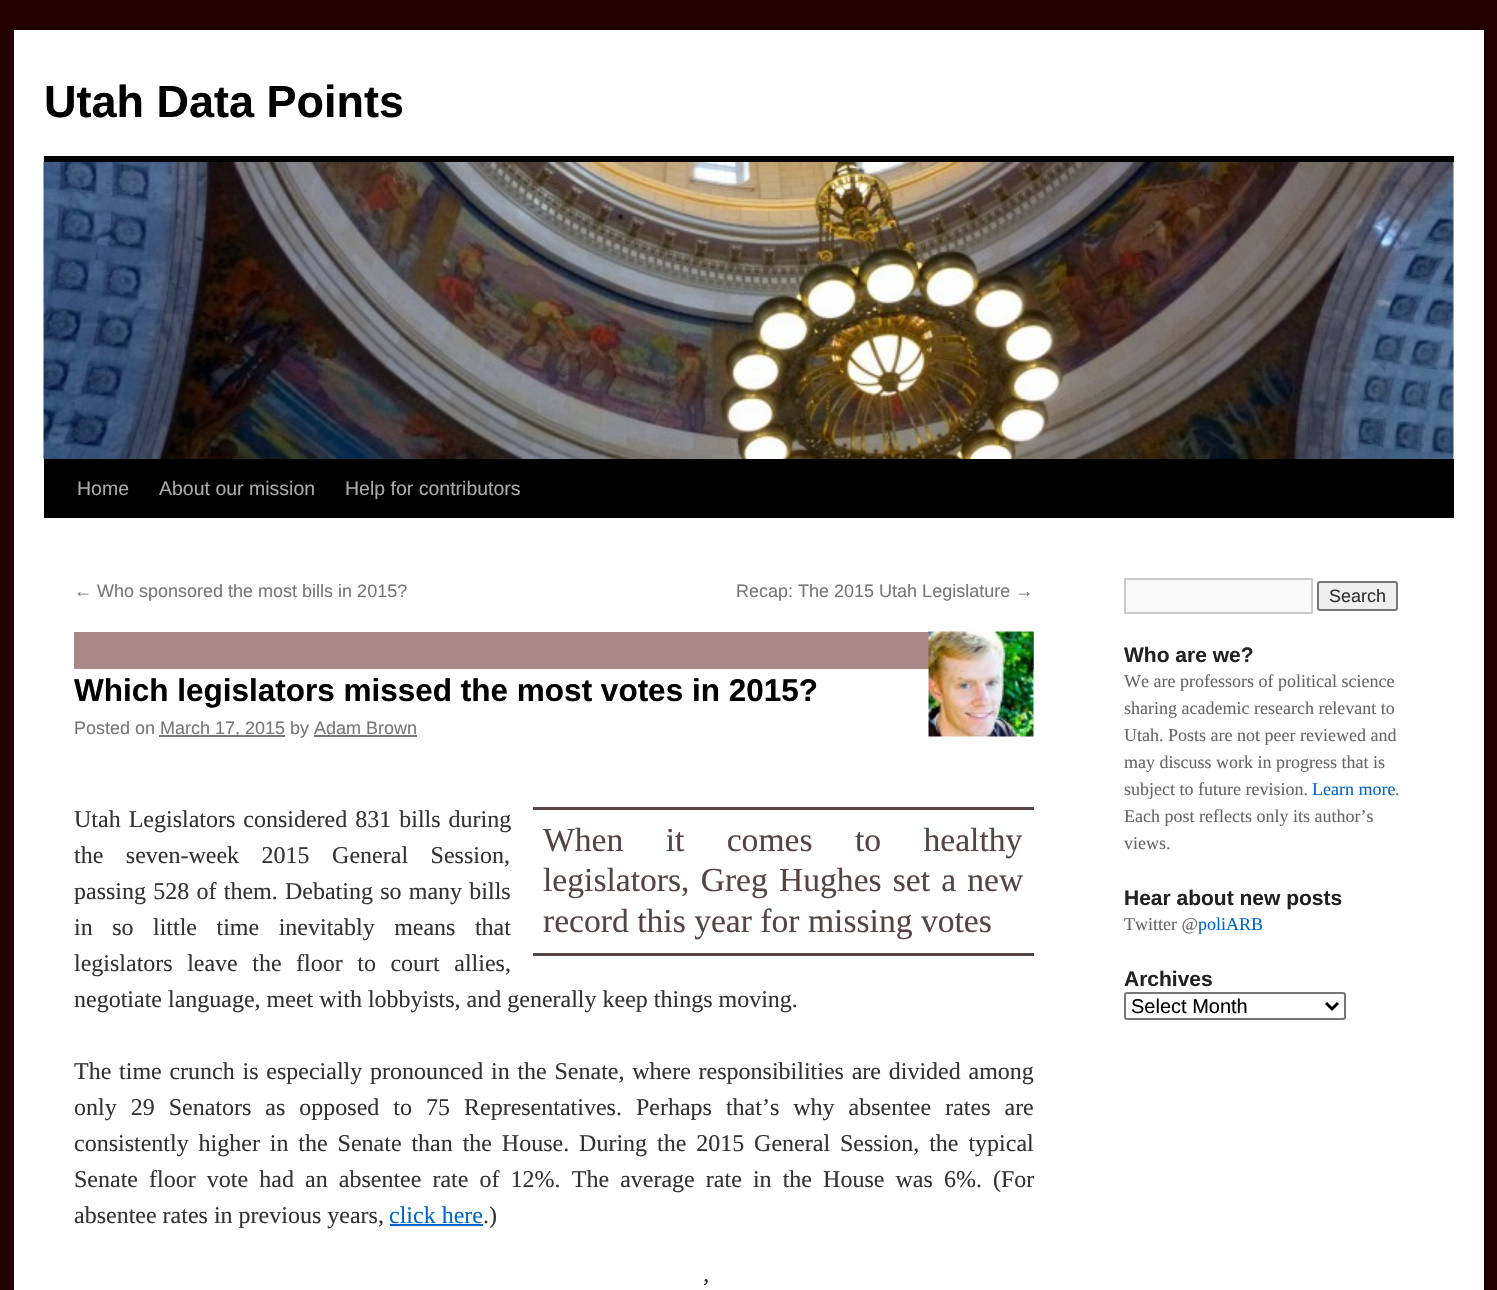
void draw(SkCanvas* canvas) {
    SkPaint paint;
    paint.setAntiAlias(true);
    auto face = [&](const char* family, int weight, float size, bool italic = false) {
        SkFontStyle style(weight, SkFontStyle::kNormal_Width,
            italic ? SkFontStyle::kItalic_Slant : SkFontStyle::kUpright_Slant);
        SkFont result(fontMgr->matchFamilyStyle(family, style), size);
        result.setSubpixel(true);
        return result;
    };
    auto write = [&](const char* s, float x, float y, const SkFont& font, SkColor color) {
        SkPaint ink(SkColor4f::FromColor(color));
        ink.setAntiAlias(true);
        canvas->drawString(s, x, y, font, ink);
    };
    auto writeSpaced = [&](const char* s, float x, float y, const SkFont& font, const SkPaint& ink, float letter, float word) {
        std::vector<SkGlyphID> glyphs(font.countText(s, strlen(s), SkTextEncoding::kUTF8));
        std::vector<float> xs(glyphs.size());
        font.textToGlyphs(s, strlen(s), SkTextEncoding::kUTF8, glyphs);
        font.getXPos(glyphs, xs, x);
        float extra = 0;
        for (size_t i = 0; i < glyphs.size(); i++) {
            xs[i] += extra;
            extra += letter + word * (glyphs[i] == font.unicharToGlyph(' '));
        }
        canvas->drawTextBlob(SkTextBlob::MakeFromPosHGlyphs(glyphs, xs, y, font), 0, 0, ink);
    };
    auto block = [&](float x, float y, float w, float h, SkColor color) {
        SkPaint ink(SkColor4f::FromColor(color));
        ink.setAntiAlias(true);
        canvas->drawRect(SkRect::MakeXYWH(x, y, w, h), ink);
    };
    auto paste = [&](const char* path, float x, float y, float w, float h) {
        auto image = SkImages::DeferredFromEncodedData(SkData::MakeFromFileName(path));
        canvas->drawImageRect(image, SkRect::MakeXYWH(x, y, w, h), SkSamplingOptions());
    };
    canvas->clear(SkColorSetRGB(34, 0, 0));
    block(14, 30, 1470, 1260, SK_ColorWHITE);
    auto kFont1 = face("Liberation Sans", 700, 45);
    write("Utah Data Points", 44, 117, kFont1, SK_ColorBLACK);
    block(44, 156, 1410, 6, SK_ColorBLACK);
    block(44, 459, 1410, 59, SK_ColorBLACK);
    paste("pic1.png", 43, 162, 1411, 297);
    auto kFont2 = face("Liberation Sans", 400, 19.5f);
    write("Home", 77, 495, kFont2, SkColorSetRGB(170, 170, 170));
    write("About our mission", 159, 495, kFont2, SkColorSetRGB(170, 170, 170));
    write("Help for contributors", 345, 495, kFont2, SkColorSetRGB(170, 170, 170));
    auto kFont3 = face("Liberation Sans", 400, 18);
    write("← Who sponsored the most bills in 2015?", 74, 597, kFont3, SkColorSetRGB(119, 119, 119));
    write("Recap: The 2015 Utah Legislature →", 736, 597, kFont3, SkColorSetRGB(119, 119, 119));
    block(74, 632, 960, 37, SkColorSetRGB(170, 136, 136));
    auto kFont4 = face("Liberation Sans", 700, 31.5f);
    write("Which legislators missed the most votes in 2015?", 74, 701, kFont4, SK_ColorBLACK);
    paste("pic2.png", 928, 631, 106, 106);
    write("Posted on", 74, 734, kFont3, SkColorSetRGB(119, 119, 119));
    block(159, 735, 126, 2, SkColorSetRGB(119, 119, 119));
    write("March 17, 2015 by Adam Brown", 160, 734, kFont3, SkColorSetRGB(119, 119, 119));
    block(314, 735, 103, 2, SkColorSetRGB(119, 119, 119));
    auto kFont5 = face("Liberation Serif", 400, 24);
    paint.setColor(SkColorSetRGB(51, 51, 51));
    writeSpaced("Utah Legislators considered 831 bills during", 74, 827, kFont5, paint, 0, 2);
    writeSpaced("the seven-week 2015 General Session,", 74, 863, kFont5, paint, 0, 16.5f);
    writeSpaced("passing 528 of them. Debating so many bills", 74, 899, kFont5, paint, 0, 1.25f);
    writeSpaced("in so little time inevitably means that", 74, 935, kFont5, paint, 0, 13.5f);
    writeSpaced("legislators leave the floor to court allies,", 74, 971, kFont5, paint, 0, 8.5f);
    write("negotiate language, meet with lobbyists, and generally keep things moving.", 74, 1007, kFont5, SkColorSetRGB(51, 51, 51));
    block(533, 807, 501, 3, SkColorSetRGB(85, 68, 68));
    block(533, 953, 501, 3, SkColorSetRGB(85, 68, 68));
    auto kFont6 = face("Liberation Serif", 400, 33.6f);
    paint.setColor(SkColorSetRGB(85, 68, 68));
    writeSpaced("When it comes to healthy", 543, 851, kFont6, paint, 0, 34);
    writeSpaced("legislators, Greg Hughes set a new", 543, 891, kFont6, paint, 0, 2.75f);
    write("record this year for missing votes", 543, 932, kFont6, SkColorSetRGB(85, 68, 68));
    paint.setColor(SkColorSetRGB(51, 51, 51));
    writeSpaced("The time crunch is especially pronounced in the Senate, where responsibilities are divided among", 74, 1079, kFont5, paint, 0, 1.75f);
    writeSpaced("only 29 Senators as opposed to 75 Representatives. Perhaps that’s why absentee rates are", 74, 1115, kFont5, paint, 0, 8);
    writeSpaced("consistently higher in the Senate than the House. During the 2015 General Session, the typical", 74, 1151, kFont5, paint, 0, 3.9f);
    writeSpaced("Senate floor vote had an absentee rate of 12%. The average rate in the House was 6%. (For", 74, 1187, kFont5, paint, 0, 5.1f);
    write("absentee rates in previous years,", 74, 1223, kFont5, SkColorSetRGB(51, 51, 51));
    write("click here", 389, 1223, kFont5, SkColorSetRGB(0, 102, 204));
    block(390, 1224, 93, 2, SkColorSetRGB(0, 102, 204));
    write(".)", 483, 1223, kFont5, SkColorSetRGB(51, 51, 51));
    writeSpaced("’", 702, 1295, kFont5, paint, 0, 4);
    paint.setColor(SkColorSetRGB(249, 249, 249));
    canvas->drawRect(SkRect::MakeXYWH(1125, 579, 187, 34), paint);
    paint.setStyle(SkPaint::kStroke_Style);
    paint.setStrokeWidth(2);
    paint.setColor(SkColorSetRGB(204, 204, 204));
    canvas->drawRect(SkRect::MakeXYWH(1125, 579, 187, 34), paint);
    paint.setStyle(SkPaint::kFill_Style);
    paint.setColor(SkColorSetRGB(239, 239, 239));
    canvas->drawRoundRect(SkRect::MakeXYWH(1318, 582, 79, 28), 2, 2, paint);
    paint.setStyle(SkPaint::kStroke_Style);
    paint.setColor(SkColorSetRGB(118, 118, 118));
    canvas->drawRoundRect(SkRect::MakeXYWH(1318, 582, 79, 28), 2, 2, paint);
    write("Search", 1329, 602, kFont3, SkColorSetRGB(51, 51, 51));
    auto kFont7 = face("Liberation Sans", 700, 21);
    write("Who are we?", 1124, 662, kFont7, SkColorSetRGB(34, 34, 34));
    auto kFont8 = face("Liberation Serif", 400, 18);
    write("We are professors of political science", 1124, 687, kFont8, SkColorSetRGB(102, 102, 102));
    write("sharing academic research relevant to", 1124, 714, kFont8, SkColorSetRGB(102, 102, 102));
    write("Utah. Posts are not peer reviewed and", 1124, 741, kFont8, SkColorSetRGB(102, 102, 102));
    write("may discuss work in progress that is", 1124, 768, kFont8, SkColorSetRGB(102, 102, 102));
    write("subject to future revision.", 1124, 795, kFont8, SkColorSetRGB(102, 102, 102));
    write("Learn more", 1312, 795, kFont8, SkColorSetRGB(0, 102, 204));
    write(".", 1395, 795, kFont8, SkColorSetRGB(102, 102, 102));
    write("Each post reflects only its author’s", 1124, 822, kFont8, SkColorSetRGB(102, 102, 102));
    write("views.", 1124, 849, kFont8, SkColorSetRGB(102, 102, 102));
    write("Hear about new posts", 1124, 905, kFont7, SkColorSetRGB(34, 34, 34));
    canvas->save();
    canvas->clipRect(SkRect::MakeXYWH(1124, 578, 330, 469));
    write("Twitter @", 1124, 930, kFont8, SkColorSetRGB(102, 102, 102));
    canvas->restore();
    write("poliARB", 1198, 930, kFont8, SkColorSetRGB(0, 102, 204));
    write("Archives", 1124, 986, kFont7, SkColorSetRGB(34, 34, 34));
    canvas->drawRoundRect(SkRect::MakeXYWH(1125, 993, 220, 26), 2, 2, paint);
    paint.setStrokeWidth(3);
    paint.setColor(SK_ColorBLACK);
    canvas->drawPath(SkPathBuilder().moveTo(1326, 1003).lineTo(1332, 1009).lineTo(1338, 1003).detach(), paint);
    auto kFont9 = face("Liberation Sans", 400, 20);
    write("Select Month", 1131, 1013, kFont9, SK_ColorBLACK);
}
